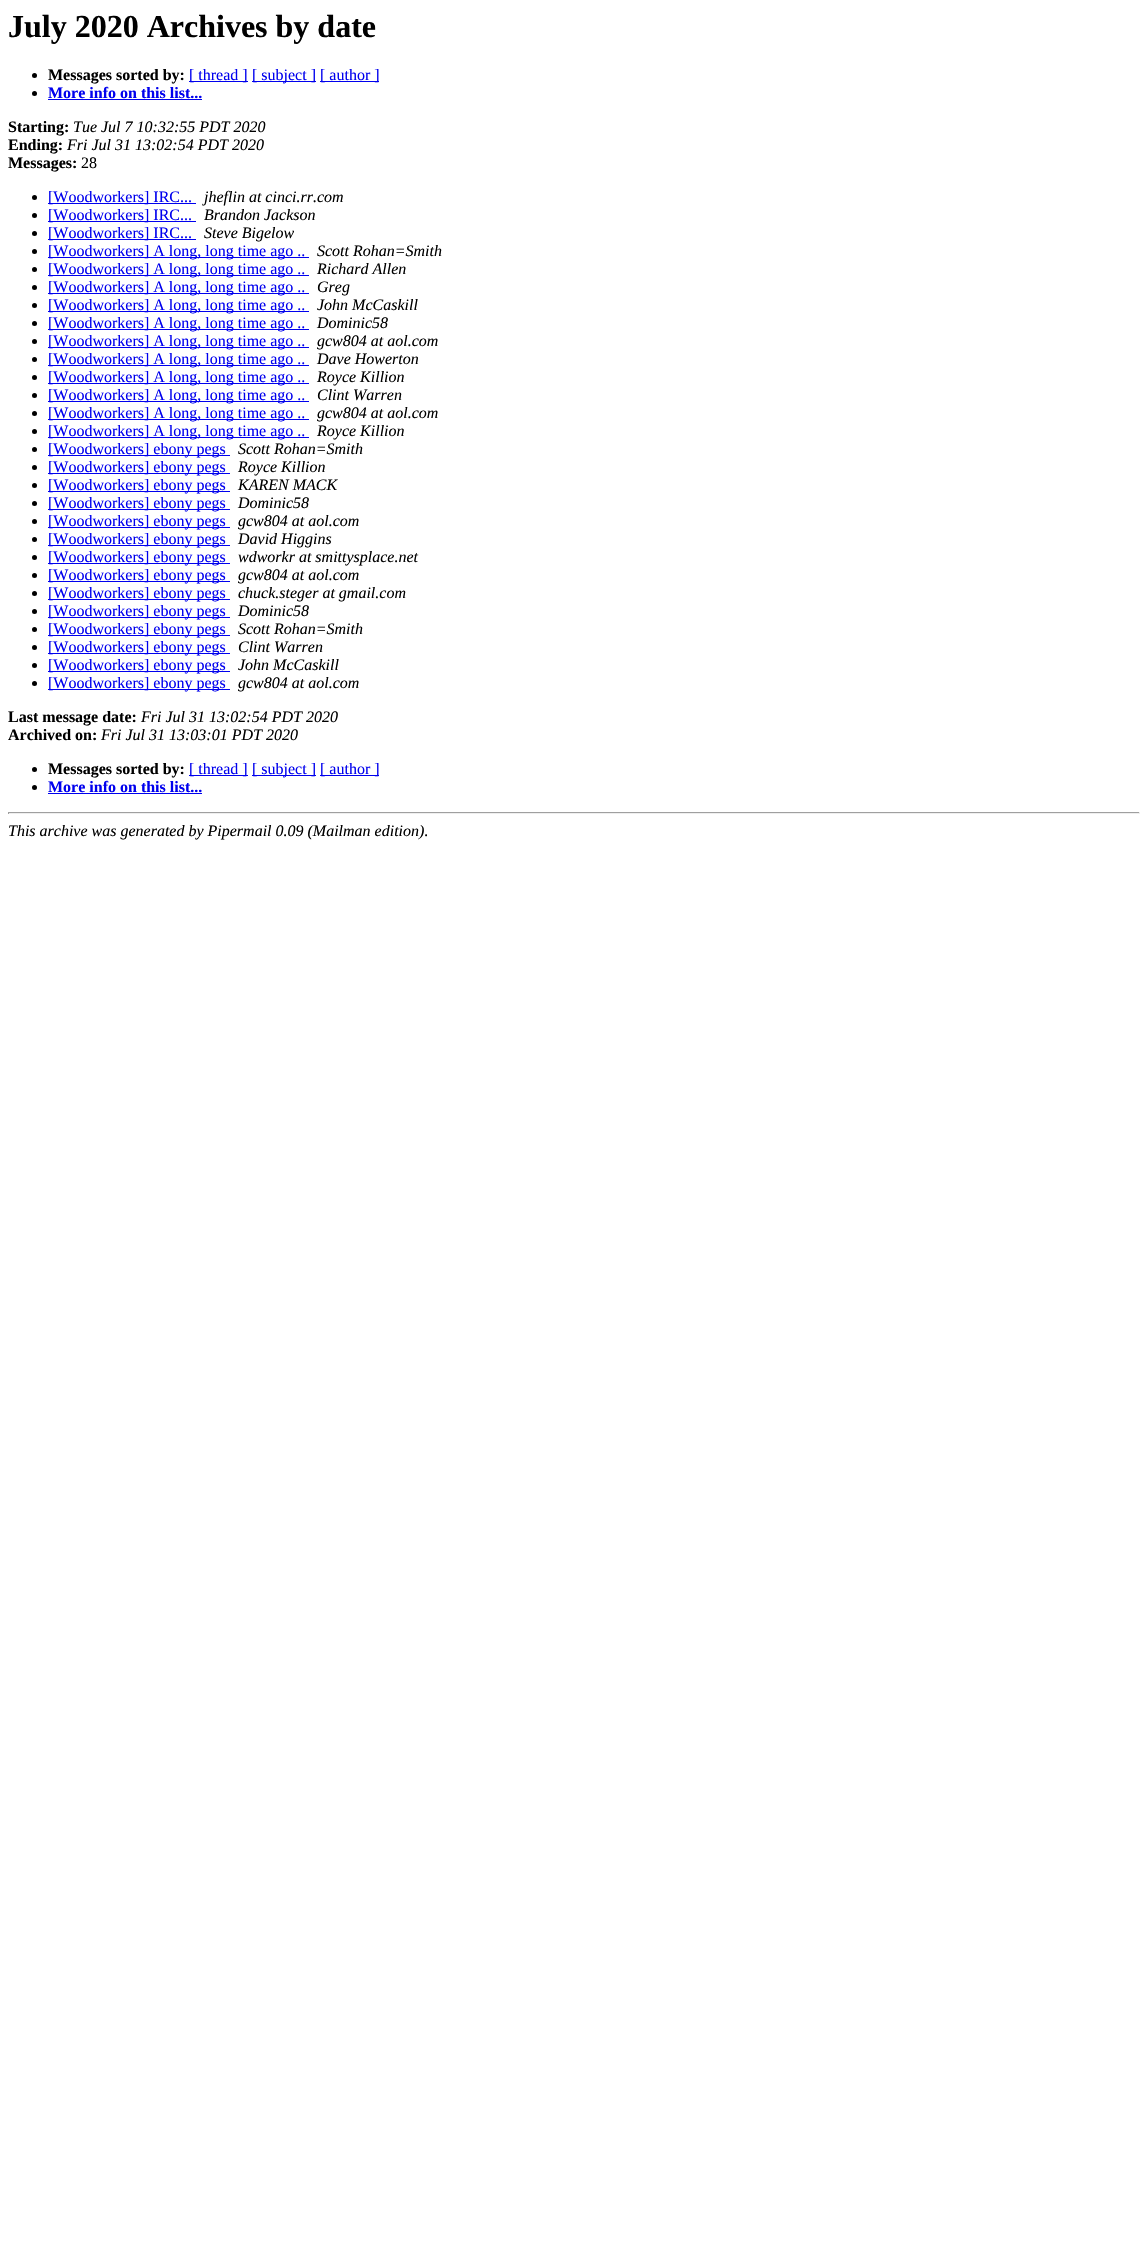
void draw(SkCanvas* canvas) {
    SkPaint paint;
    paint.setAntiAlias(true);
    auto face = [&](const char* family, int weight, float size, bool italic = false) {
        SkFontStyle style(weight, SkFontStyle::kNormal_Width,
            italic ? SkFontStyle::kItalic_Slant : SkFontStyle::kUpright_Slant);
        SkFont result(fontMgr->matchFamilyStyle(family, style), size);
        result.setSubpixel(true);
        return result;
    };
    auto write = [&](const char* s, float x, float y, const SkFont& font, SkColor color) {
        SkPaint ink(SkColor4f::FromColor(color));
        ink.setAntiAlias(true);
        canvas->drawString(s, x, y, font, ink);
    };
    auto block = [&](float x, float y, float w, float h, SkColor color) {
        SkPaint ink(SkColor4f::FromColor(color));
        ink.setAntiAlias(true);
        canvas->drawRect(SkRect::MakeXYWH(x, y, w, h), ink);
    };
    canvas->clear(SK_ColorWHITE);
    auto kFont1 = face("Liberation Serif", 700, 32);
    write("July 2020 Archives by date", 8, 37, kFont1, SK_ColorBLACK);
    paint.setColor(SK_ColorBLACK);
    canvas->drawCircle(34.5f, 75.5f, 2.5f, paint);
    auto kFont2 = face("Liberation Serif", 700, 16);
    write("Messages sorted by:", 48, 80, kFont2, SK_ColorBLACK);
    block(189, 81, 59, 1, SkColorSetRGB(0, 0, 238));
    auto kFont3 = face("Liberation Serif", 400, 16);
    write("[ thread ]", 189, 80, kFont3, SkColorSetRGB(0, 0, 238));
    block(252, 81, 64, 1, SkColorSetRGB(0, 0, 238));
    write("[ subject ]", 252, 80, kFont3, SkColorSetRGB(0, 0, 238));
    block(320, 81, 59, 1, SkColorSetRGB(0, 0, 238));
    write("[ author ]", 320, 80, kFont3, SkColorSetRGB(0, 0, 238));
    canvas->drawCircle(34.5f, 93.5f, 2.5f, paint);
    write("More info on this list...", 48, 98, kFont2, SkColorSetRGB(0, 0, 238));
    block(48, 99, 154, 1, SkColorSetRGB(0, 0, 238));
    write("Starting:", 8, 132, kFont2, SK_ColorBLACK);
    auto kFont4 = face("Liberation Serif", 400, 16, true);
    write("Tue Jul 7 10:32:55 PDT 2020", 73, 132, kFont4, SK_ColorBLACK);
    write("Ending:", 8, 150, kFont2, SK_ColorBLACK);
    write("Fri Jul 31 13:02:54 PDT 2020", 67, 150, kFont4, SK_ColorBLACK);
    write("Messages:", 8, 168, kFont2, SK_ColorBLACK);
    write("28", 81, 168, kFont3, SK_ColorBLACK);
    canvas->drawCircle(34.5f, 197.5f, 2.5f, paint);
    block(48, 203, 148, 1, SkColorSetRGB(0, 0, 238));
    write("[Woodworkers] IRC...", 48, 202, kFont3, SkColorSetRGB(0, 0, 238));
    write("jheflin at cinci.rr.com", 204, 202, kFont4, SK_ColorBLACK);
    canvas->drawCircle(34.5f, 215.5f, 2.5f, paint);
    block(48, 221, 148, 1, SkColorSetRGB(0, 0, 238));
    write("[Woodworkers] IRC...", 48, 220, kFont3, SkColorSetRGB(0, 0, 238));
    write("Brandon Jackson", 204, 220, kFont4, SK_ColorBLACK);
    canvas->drawCircle(34.5f, 233.5f, 2.5f, paint);
    block(48, 239, 148, 1, SkColorSetRGB(0, 0, 238));
    write("[Woodworkers] IRC...", 48, 238, kFont3, SkColorSetRGB(0, 0, 238));
    write("Steve Bigelow", 204, 238, kFont4, SK_ColorBLACK);
    canvas->drawCircle(34.5f, 251.5f, 2.5f, paint);
    block(48, 257, 261, 1, SkColorSetRGB(0, 0, 238));
    write("[Woodworkers] A long, long time ago ..", 48, 256, kFont3, SkColorSetRGB(0, 0, 238));
    write("Scott Rohan=Smith", 317, 256, kFont4, SK_ColorBLACK);
    canvas->drawCircle(34.5f, 269.5f, 2.5f, paint);
    block(48, 275, 261, 1, SkColorSetRGB(0, 0, 238));
    write("[Woodworkers] A long, long time ago ..", 48, 274, kFont3, SkColorSetRGB(0, 0, 238));
    write("Richard Allen", 317, 274, kFont4, SK_ColorBLACK);
    canvas->drawCircle(34.5f, 287.5f, 2.5f, paint);
    block(48, 293, 261, 1, SkColorSetRGB(0, 0, 238));
    write("[Woodworkers] A long, long time ago ..", 48, 292, kFont3, SkColorSetRGB(0, 0, 238));
    write("Greg", 317, 292, kFont4, SK_ColorBLACK);
    canvas->drawCircle(34.5f, 305.5f, 2.5f, paint);
    block(48, 311, 261, 1, SkColorSetRGB(0, 0, 238));
    write("[Woodworkers] A long, long time ago ..", 48, 310, kFont3, SkColorSetRGB(0, 0, 238));
    write("John McCaskill", 317, 310, kFont4, SK_ColorBLACK);
    canvas->drawCircle(34.5f, 323.5f, 2.5f, paint);
    block(48, 329, 261, 1, SkColorSetRGB(0, 0, 238));
    write("[Woodworkers] A long, long time ago ..", 48, 328, kFont3, SkColorSetRGB(0, 0, 238));
    write("Dominic58", 317, 328, kFont4, SK_ColorBLACK);
    canvas->drawCircle(34.5f, 341.5f, 2.5f, paint);
    block(48, 347, 261, 1, SkColorSetRGB(0, 0, 238));
    write("[Woodworkers] A long, long time ago ..", 48, 346, kFont3, SkColorSetRGB(0, 0, 238));
    write("gcw804 at aol.com", 317, 346, kFont4, SK_ColorBLACK);
    canvas->drawCircle(34.5f, 359.5f, 2.5f, paint);
    block(48, 365, 261, 1, SkColorSetRGB(0, 0, 238));
    write("[Woodworkers] A long, long time ago ..", 48, 364, kFont3, SkColorSetRGB(0, 0, 238));
    write("Dave Howerton", 317, 364, kFont4, SK_ColorBLACK);
    canvas->drawCircle(34.5f, 377.5f, 2.5f, paint);
    block(48, 383, 261, 1, SkColorSetRGB(0, 0, 238));
    write("[Woodworkers] A long, long time ago ..", 48, 382, kFont3, SkColorSetRGB(0, 0, 238));
    write("Royce Killion", 317, 382, kFont4, SK_ColorBLACK);
    canvas->drawCircle(34.5f, 395.5f, 2.5f, paint);
    block(48, 401, 261, 1, SkColorSetRGB(0, 0, 238));
    write("[Woodworkers] A long, long time ago ..", 48, 400, kFont3, SkColorSetRGB(0, 0, 238));
    write("Clint Warren", 317, 400, kFont4, SK_ColorBLACK);
    canvas->drawCircle(34.5f, 413.5f, 2.5f, paint);
    block(48, 419, 261, 1, SkColorSetRGB(0, 0, 238));
    write("[Woodworkers] A long, long time ago ..", 48, 418, kFont3, SkColorSetRGB(0, 0, 238));
    write("gcw804 at aol.com", 317, 418, kFont4, SK_ColorBLACK);
    canvas->drawCircle(34.5f, 431.5f, 2.5f, paint);
    block(48, 437, 261, 1, SkColorSetRGB(0, 0, 238));
    write("[Woodworkers] A long, long time ago ..", 48, 436, kFont3, SkColorSetRGB(0, 0, 238));
    write("Royce Killion", 317, 436, kFont4, SK_ColorBLACK);
    canvas->drawCircle(34.5f, 449.5f, 2.5f, paint);
    block(48, 455, 182, 1, SkColorSetRGB(0, 0, 238));
    write("[Woodworkers] ebony pegs", 48, 454, kFont3, SkColorSetRGB(0, 0, 238));
    write("Scott Rohan=Smith", 238, 454, kFont4, SK_ColorBLACK);
    canvas->drawCircle(34.5f, 467.5f, 2.5f, paint);
    block(48, 473, 182, 1, SkColorSetRGB(0, 0, 238));
    write("[Woodworkers] ebony pegs", 48, 472, kFont3, SkColorSetRGB(0, 0, 238));
    write("Royce Killion", 238, 472, kFont4, SK_ColorBLACK);
    canvas->drawCircle(34.5f, 485.5f, 2.5f, paint);
    block(48, 491, 182, 1, SkColorSetRGB(0, 0, 238));
    write("[Woodworkers] ebony pegs", 48, 490, kFont3, SkColorSetRGB(0, 0, 238));
    write("KAREN MACK", 238, 490, kFont4, SK_ColorBLACK);
    canvas->drawCircle(34.5f, 503.5f, 2.5f, paint);
    block(48, 509, 182, 1, SkColorSetRGB(0, 0, 238));
    write("[Woodworkers] ebony pegs", 48, 508, kFont3, SkColorSetRGB(0, 0, 238));
    write("Dominic58", 238, 508, kFont4, SK_ColorBLACK);
    canvas->drawCircle(34.5f, 521.5f, 2.5f, paint);
    block(48, 527, 182, 1, SkColorSetRGB(0, 0, 238));
    write("[Woodworkers] ebony pegs", 48, 526, kFont3, SkColorSetRGB(0, 0, 238));
    write("gcw804 at aol.com", 238, 526, kFont4, SK_ColorBLACK);
    canvas->drawCircle(34.5f, 539.5f, 2.5f, paint);
    block(48, 545, 182, 1, SkColorSetRGB(0, 0, 238));
    write("[Woodworkers] ebony pegs", 48, 544, kFont3, SkColorSetRGB(0, 0, 238));
    write("David Higgins", 238, 544, kFont4, SK_ColorBLACK);
    canvas->drawCircle(34.5f, 557.5f, 2.5f, paint);
    block(48, 563, 182, 1, SkColorSetRGB(0, 0, 238));
    write("[Woodworkers] ebony pegs", 48, 562, kFont3, SkColorSetRGB(0, 0, 238));
    write("wdworkr at smittysplace.net", 238, 562, kFont4, SK_ColorBLACK);
    canvas->drawCircle(34.5f, 575.5f, 2.5f, paint);
    block(48, 581, 182, 1, SkColorSetRGB(0, 0, 238));
    write("[Woodworkers] ebony pegs", 48, 580, kFont3, SkColorSetRGB(0, 0, 238));
    write("gcw804 at aol.com", 238, 580, kFont4, SK_ColorBLACK);
    canvas->drawCircle(34.5f, 593.5f, 2.5f, paint);
    block(48, 599, 182, 1, SkColorSetRGB(0, 0, 238));
    write("[Woodworkers] ebony pegs", 48, 598, kFont3, SkColorSetRGB(0, 0, 238));
    write("chuck.steger at gmail.com", 238, 598, kFont4, SK_ColorBLACK);
    canvas->drawCircle(34.5f, 611.5f, 2.5f, paint);
    block(48, 617, 182, 1, SkColorSetRGB(0, 0, 238));
    write("[Woodworkers] ebony pegs", 48, 616, kFont3, SkColorSetRGB(0, 0, 238));
    write("Dominic58", 238, 616, kFont4, SK_ColorBLACK);
    canvas->drawCircle(34.5f, 629.5f, 2.5f, paint);
    block(48, 635, 182, 1, SkColorSetRGB(0, 0, 238));
    write("[Woodworkers] ebony pegs", 48, 634, kFont3, SkColorSetRGB(0, 0, 238));
    write("Scott Rohan=Smith", 238, 634, kFont4, SK_ColorBLACK);
    canvas->drawCircle(34.5f, 647.5f, 2.5f, paint);
    block(48, 653, 182, 1, SkColorSetRGB(0, 0, 238));
    write("[Woodworkers] ebony pegs", 48, 652, kFont3, SkColorSetRGB(0, 0, 238));
    write("Clint Warren", 238, 652, kFont4, SK_ColorBLACK);
    canvas->drawCircle(34.5f, 665.5f, 2.5f, paint);
    block(48, 671, 182, 1, SkColorSetRGB(0, 0, 238));
    write("[Woodworkers] ebony pegs", 48, 670, kFont3, SkColorSetRGB(0, 0, 238));
    write("John McCaskill", 238, 670, kFont4, SK_ColorBLACK);
    canvas->drawCircle(34.5f, 683.5f, 2.5f, paint);
    block(48, 689, 182, 1, SkColorSetRGB(0, 0, 238));
    write("[Woodworkers] ebony pegs", 48, 688, kFont3, SkColorSetRGB(0, 0, 238));
    write("gcw804 at aol.com", 238, 688, kFont4, SK_ColorBLACK);
    write("Last message date:", 8, 722, kFont2, SK_ColorBLACK);
    write("Fri Jul 31 13:02:54 PDT 2020", 141, 722, kFont4, SK_ColorBLACK);
    write("Archived on:", 8, 740, kFont2, SK_ColorBLACK);
    write("Fri Jul 31 13:03:01 PDT 2020", 101, 740, kFont4, SK_ColorBLACK);
    canvas->drawCircle(34.5f, 769.5f, 2.5f, paint);
    write("Messages sorted by:", 48, 774, kFont2, SK_ColorBLACK);
    block(189, 775, 59, 1, SkColorSetRGB(0, 0, 238));
    write("[ thread ]", 189, 774, kFont3, SkColorSetRGB(0, 0, 238));
    block(252, 775, 64, 1, SkColorSetRGB(0, 0, 238));
    write("[ subject ]", 252, 774, kFont3, SkColorSetRGB(0, 0, 238));
    block(320, 775, 59, 1, SkColorSetRGB(0, 0, 238));
    write("[ author ]", 320, 774, kFont3, SkColorSetRGB(0, 0, 238));
    canvas->drawCircle(34.5f, 787.5f, 2.5f, paint);
    write("More info on this list...", 48, 792, kFont2, SkColorSetRGB(0, 0, 238));
    block(48, 793, 154, 1, SkColorSetRGB(0, 0, 238));
    block(8, 812, 1132, 1, SkColorSetRGB(159, 159, 159));
    block(1139, 812, 1, 2, SkColorSetRGB(238, 238, 238));
    block(8, 813, 1132, 1, SkColorSetRGB(238, 238, 238));
    block(8, 812, 1, 2, SkColorSetRGB(159, 159, 159));
    write("This archive was generated by Pipermail 0.09 (Mailman edition).", 8, 836, kFont4, SK_ColorBLACK);
}
